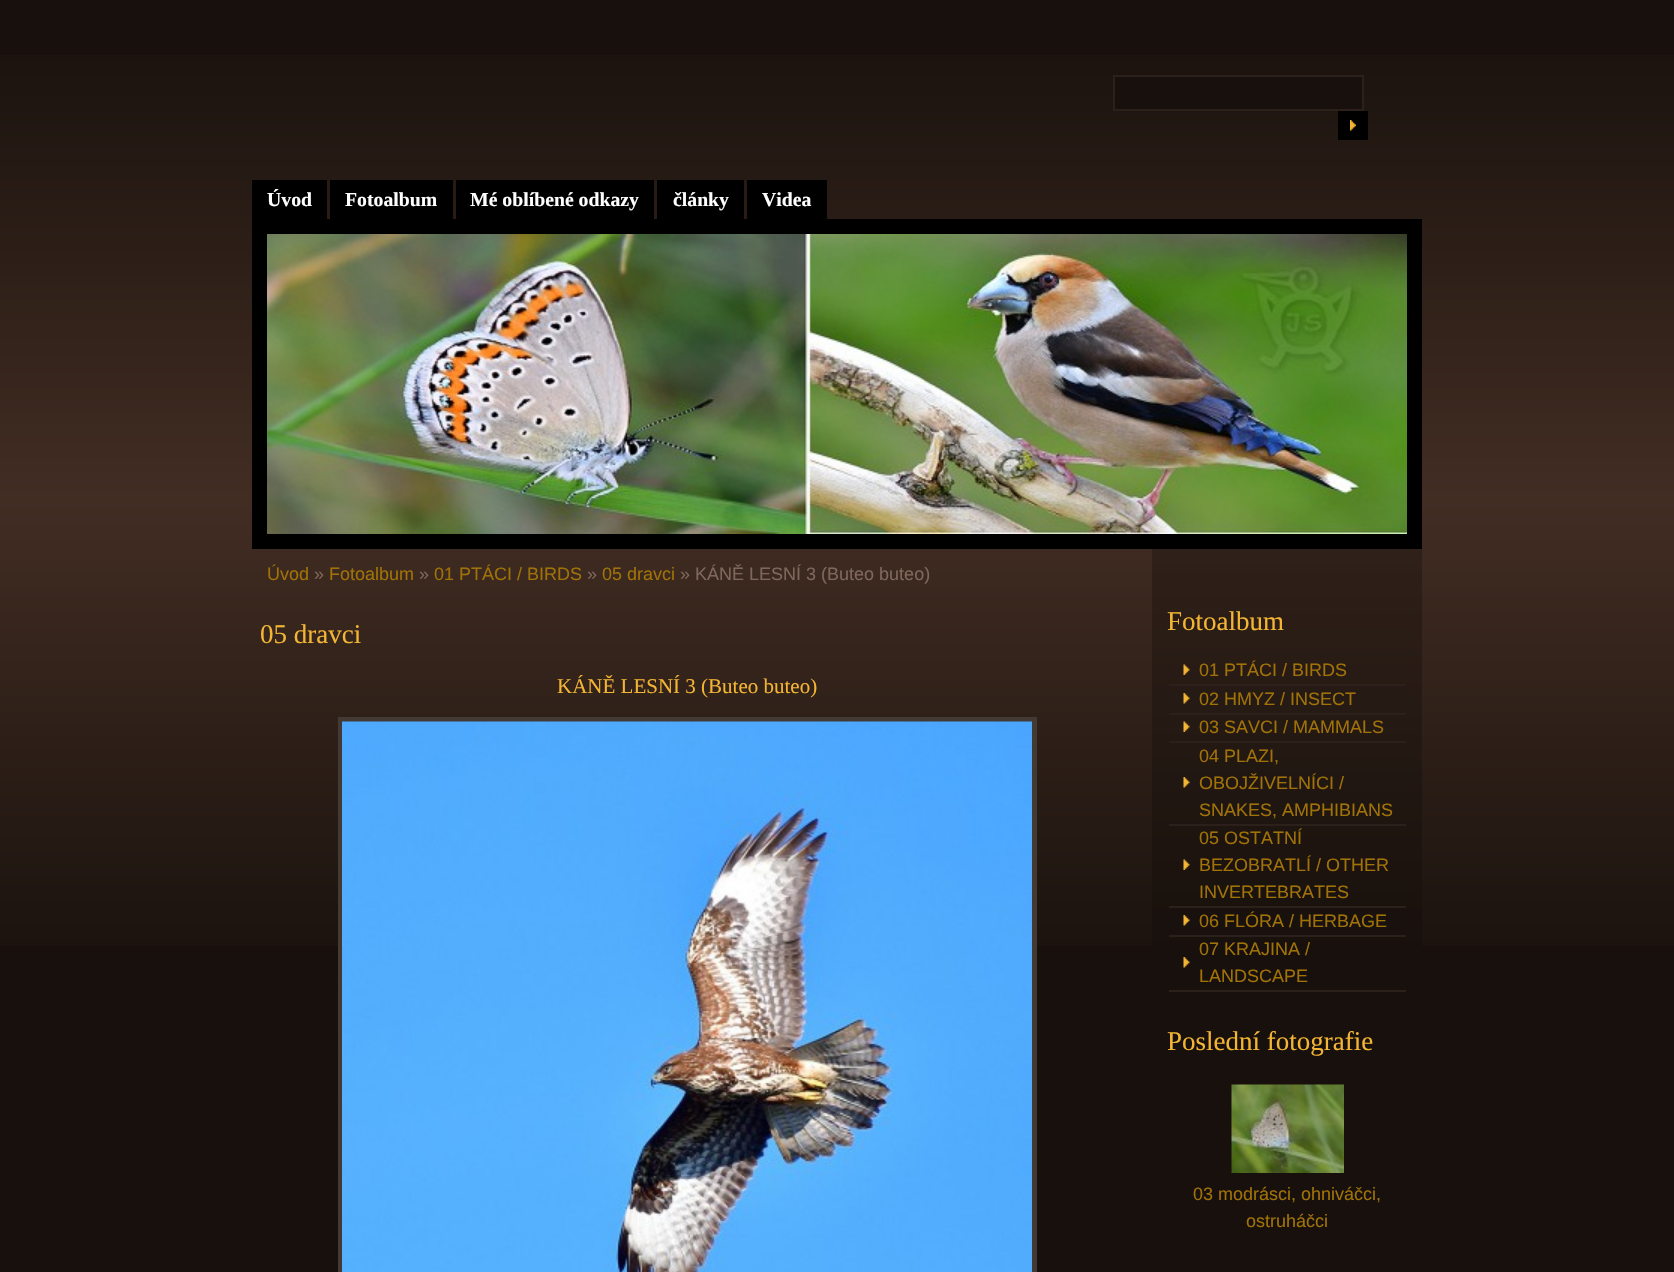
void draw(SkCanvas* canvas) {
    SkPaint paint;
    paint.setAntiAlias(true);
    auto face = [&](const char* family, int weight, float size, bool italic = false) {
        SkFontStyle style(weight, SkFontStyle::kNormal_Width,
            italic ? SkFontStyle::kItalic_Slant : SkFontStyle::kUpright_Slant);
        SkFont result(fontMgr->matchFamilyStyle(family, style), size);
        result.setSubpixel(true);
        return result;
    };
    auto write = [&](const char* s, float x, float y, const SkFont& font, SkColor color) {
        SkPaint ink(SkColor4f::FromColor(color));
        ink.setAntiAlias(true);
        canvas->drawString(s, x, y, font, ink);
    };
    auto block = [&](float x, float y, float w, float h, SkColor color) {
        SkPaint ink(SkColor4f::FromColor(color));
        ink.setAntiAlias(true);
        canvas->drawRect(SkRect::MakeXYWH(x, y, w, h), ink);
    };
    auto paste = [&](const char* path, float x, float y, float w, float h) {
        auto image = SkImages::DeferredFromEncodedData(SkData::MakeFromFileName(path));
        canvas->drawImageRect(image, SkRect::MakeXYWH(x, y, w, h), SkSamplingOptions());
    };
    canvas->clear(SkColorSetRGB(23, 16, 12));
    paste("pic1.png", 0, 55, 1674, 891);
    block(252, 180, 75, 39, SK_ColorBLACK);
    auto kFont1 = face("Liberation Serif", 700, 19.75f);
    write("Úvod", 267, 206, kFont1, SK_ColorWHITE);
    block(330, 180, 123, 39, SK_ColorBLACK);
    write("Fotoalbum", 345, 206, kFont1, SK_ColorWHITE);
    block(456, 180, 198, 39, SK_ColorBLACK);
    write("Mé oblíbené odkazy", 470, 206, kFont1, SK_ColorWHITE);
    block(657, 180, 87, 39, SK_ColorBLACK);
    write("články", 673, 206, kFont1, SK_ColorWHITE);
    block(747, 180, 80, 39, SK_ColorBLACK);
    write("Videa", 762, 206, kFont1, SK_ColorWHITE);
    block(252, 219, 1170, 330, SK_ColorBLACK);
    paste("pic2.png", 267, 234, 1140, 300);
    auto kFont2 = face("Liberation Sans", 400, 18);
    write("Úvod", 267, 580, kFont2, SkColorSetRGB(160, 114, 7));
    write("»", 314, 580, kFont2, SkColorSetRGB(127, 103, 92));
    write("Fotoalbum", 329, 580, kFont2, SkColorSetRGB(160, 114, 7));
    write("»", 419, 580, kFont2, SkColorSetRGB(127, 103, 92));
    write("01 PTÁCI / BIRDS", 434, 580, kFont2, SkColorSetRGB(160, 114, 7));
    write("»", 587, 580, kFont2, SkColorSetRGB(127, 103, 92));
    write("05 dravci", 602, 580, kFont2, SkColorSetRGB(160, 114, 7));
    write("» KÁNĚ LESNÍ 3 (Buteo buteo)", 680, 580, kFont2, SkColorSetRGB(127, 103, 92));
    auto kFont3 = face("Liberation Serif", 400, 27);
    write("05 dravci", 260, 643, kFont3, SkColorSetRGB(243, 181, 51));
    auto kFont4 = face("Liberation Serif", 400, 21);
    write("KÁNĚ LESNÍ 3 (Buteo buteo)", 557, 693, kFont4, SkColorSetRGB(243, 181, 51));
    paint.setStyle(SkPaint::kStroke_Style);
    paint.setStrokeWidth(5);
    paint.setColor(SkColorSetRGB(67, 58, 51));
    canvas->drawRect(SkRect::MakeXYWH(340.5f, 719.5f, 694, 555), paint);
    paste("pic3.png", 342, 721, 690, 551);
    paste("pic4.png", 1152, 549, 270, 397);
    paint.setStyle(SkPaint::kFill_Style);
    paint.setColor(SkColorSetRGB(24, 16, 13));
    canvas->drawRect(SkRect::MakeXYWH(1114, 76, 249, 34), paint);
    paint.setStyle(SkPaint::kStroke_Style);
    paint.setStrokeWidth(2);
    paint.setColor(SkColorSetRGB(44, 32, 26));
    canvas->drawRect(SkRect::MakeXYWH(1114, 76, 249, 34), paint);
    block(1338, 111, 30, 29, SK_ColorBLACK);
    paste("pic5.png", 1350, 120, 6, 11);
    write("Fotoalbum", 1167, 630, kFont3, SkColorSetRGB(243, 181, 51));
    paste("pic6.png", 1183, 664, 7, 11);
    block(1169, 684, 237, 2, SkColorSetRGB(44, 32, 26));
    write("01 PTÁCI / BIRDS", 1199, 676, kFont2, SkColorSetRGB(160, 114, 7));
    paste("pic7.png", 1183, 693, 7, 11);
    block(1169, 713, 237, 2, SkColorSetRGB(44, 32, 26));
    write("02 HMYZ / INSECT", 1199, 705, kFont2, SkColorSetRGB(160, 114, 7));
    paste("pic8.png", 1183, 721, 7, 11);
    block(1169, 741, 237, 2, SkColorSetRGB(44, 32, 26));
    write("03 SAVCI / MAMMALS", 1199, 733, kFont2, SkColorSetRGB(160, 114, 7));
    paste("pic9.png", 1183, 777, 7, 11);
    block(1169, 824, 237, 2, SkColorSetRGB(44, 32, 26));
    write("04 PLAZI,", 1199, 762, kFont2, SkColorSetRGB(160, 114, 7));
    write("OBOJŽIVELNÍCI /", 1199, 789, kFont2, SkColorSetRGB(160, 114, 7));
    write("SNAKES, AMPHIBIANS", 1199, 816, kFont2, SkColorSetRGB(160, 114, 7));
    paste("pic10.png", 1183, 859, 7, 11);
    block(1169, 906, 237, 2, SkColorSetRGB(44, 32, 26));
    write("05 OSTATNÍ", 1199, 844, kFont2, SkColorSetRGB(160, 114, 7));
    write("BEZOBRATLÍ / OTHER", 1199, 871, kFont2, SkColorSetRGB(160, 114, 7));
    write("INVERTEBRATES", 1199, 898, kFont2, SkColorSetRGB(160, 114, 7));
    paste("pic11.png", 1183, 915, 7, 11);
    block(1169, 935, 237, 2, SkColorSetRGB(44, 32, 26));
    write("06 FLÓRA / HERBAGE", 1199, 927, kFont2, SkColorSetRGB(160, 114, 7));
    paste("pic12.png", 1183, 957, 7, 11);
    block(1169, 990, 237, 2, SkColorSetRGB(44, 32, 26));
    write("07 KRAJINA /", 1199, 955, kFont2, SkColorSetRGB(160, 114, 7));
    write("LANDSCAPE", 1199, 982, kFont2, SkColorSetRGB(160, 114, 7));
    write("Poslední fotografie", 1167, 1050, kFont3, SkColorSetRGB(243, 181, 51));
    paste("pic13.png", 1231, 1084, 113, 89);
    write("03 modrásci, ohniváčci,", 1193, 1200, kFont2, SkColorSetRGB(160, 114, 7));
    write("ostruháčci", 1246, 1227, kFont2, SkColorSetRGB(160, 114, 7));
}
